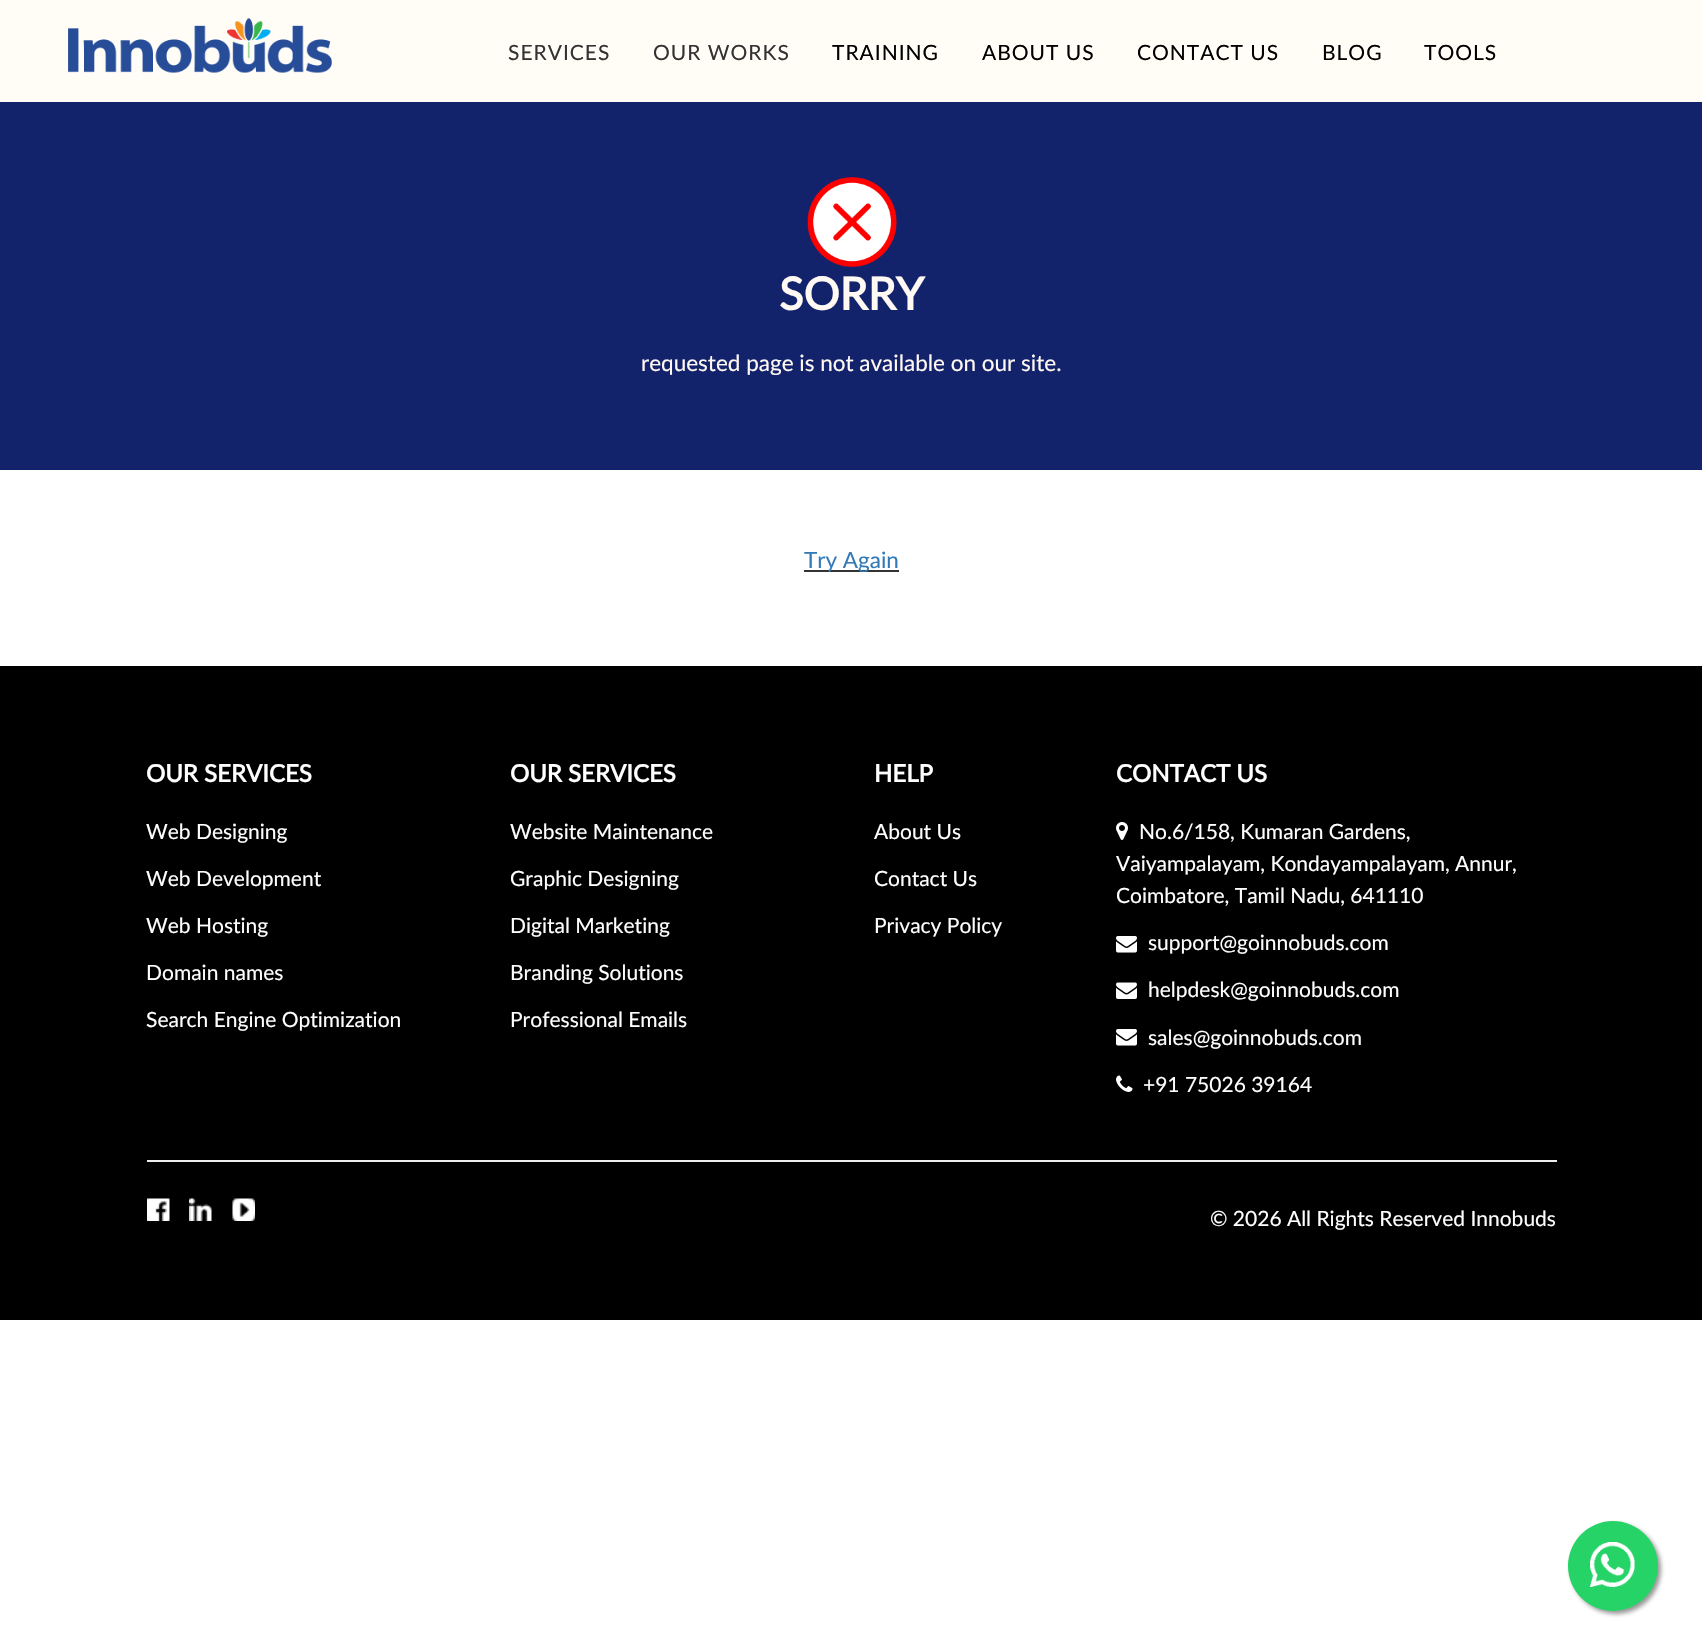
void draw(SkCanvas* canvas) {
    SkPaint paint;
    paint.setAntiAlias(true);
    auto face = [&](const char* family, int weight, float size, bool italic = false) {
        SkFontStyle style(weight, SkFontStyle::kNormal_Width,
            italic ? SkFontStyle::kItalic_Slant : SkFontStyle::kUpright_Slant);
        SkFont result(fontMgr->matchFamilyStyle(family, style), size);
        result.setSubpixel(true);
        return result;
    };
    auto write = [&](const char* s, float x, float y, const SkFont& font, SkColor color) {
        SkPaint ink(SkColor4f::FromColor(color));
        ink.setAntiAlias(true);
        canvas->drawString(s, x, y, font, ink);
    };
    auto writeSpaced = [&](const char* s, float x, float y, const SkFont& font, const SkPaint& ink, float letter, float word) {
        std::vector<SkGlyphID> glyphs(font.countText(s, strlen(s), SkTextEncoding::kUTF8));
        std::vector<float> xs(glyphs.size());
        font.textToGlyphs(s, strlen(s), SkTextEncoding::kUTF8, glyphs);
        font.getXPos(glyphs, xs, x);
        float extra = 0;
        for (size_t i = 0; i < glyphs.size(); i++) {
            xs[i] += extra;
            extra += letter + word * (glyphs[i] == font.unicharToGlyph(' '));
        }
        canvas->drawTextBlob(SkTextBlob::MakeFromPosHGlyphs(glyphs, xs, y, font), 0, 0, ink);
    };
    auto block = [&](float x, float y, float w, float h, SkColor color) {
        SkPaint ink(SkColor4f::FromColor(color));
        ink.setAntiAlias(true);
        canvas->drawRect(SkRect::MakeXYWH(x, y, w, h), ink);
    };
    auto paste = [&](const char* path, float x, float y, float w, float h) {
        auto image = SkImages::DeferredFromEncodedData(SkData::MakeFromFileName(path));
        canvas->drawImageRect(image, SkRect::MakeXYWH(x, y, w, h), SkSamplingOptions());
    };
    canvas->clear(SK_ColorWHITE);
    block(0, 0, 1702, 102, SkColorSetRGB(255, 253, 246));
    paste("pic1.png", 68, 18, 264, 55);
    auto kFont1 = face("Lato", 400, 21);
    paint.setColor(SkColorSetRGB(51, 51, 51));
    writeSpaced("SERVICES", 508, 60, kFont1, paint, 1, 0);
    writeSpaced("OUR WORKS", 653, 60, kFont1, paint, 1, 0);
    paint.setColor(SK_ColorBLACK);
    writeSpaced("TRAINING", 832, 60, kFont1, paint, 1, 0);
    writeSpaced("ABOUT US", 982, 60, kFont1, paint, 1, 0);
    writeSpaced("CONTACT US", 1137, 60, kFont1, paint, 1, 0);
    writeSpaced("BLOG", 1322, 60, kFont1, paint, 1, 0);
    writeSpaced("TOOLS", 1424, 60, kFont1, paint, 1, 0);
    block(0, 102, 1702, 368, SkColorSetRGB(19, 35, 107));
    paste("pic2.png", 807, 177, 90, 90);
    auto kFont2 = face("Lato", 700, 45);
    write("SORRY", 779, 310, kFont2, SkColorSetRGB(255, 248, 243));
    auto kFont3 = face("Lato", 400, 22.5f);
    write("requested page is not available on our site.", 641, 371, kFont3, SkColorSetRGB(255, 248, 243));
    block(804, 570, 95, 2, SkColorSetRGB(51, 51, 51));
    write("Try Again", 804, 568, kFont3, SkColorSetRGB(51, 122, 183));
    block(0, 666, 1702, 654, SK_ColorBLACK);
    auto kFont4 = face("Lato", 700, 24);
    write("OUR SERVICES", 146, 782, kFont4, SK_ColorWHITE);
    write("Web Designing", 146, 839, kFont1, SK_ColorWHITE);
    write("Web Development", 146, 886, kFont1, SK_ColorWHITE);
    write("Web Hosting", 146, 933, kFont1, SK_ColorWHITE);
    write("Domain names", 146, 980, kFont1, SK_ColorWHITE);
    write("Search Engine Optimization", 146, 1027, kFont1, SK_ColorWHITE);
    write("OUR SERVICES", 510, 782, kFont4, SK_ColorWHITE);
    write("Website Maintenance", 510, 839, kFont1, SK_ColorWHITE);
    write("Graphic Designing", 510, 886, kFont1, SK_ColorWHITE);
    write("Digital Marketing", 510, 933, kFont1, SK_ColorWHITE);
    write("Branding Solutions", 510, 980, kFont1, SK_ColorWHITE);
    write("Professional Emails", 510, 1027, kFont1, SK_ColorWHITE);
    write("HELP", 874, 782, kFont4, SK_ColorWHITE);
    write("About Us", 874, 839, kFont1, SK_ColorWHITE);
    write("Contact Us", 874, 886, kFont1, SK_ColorWHITE);
    write("Privacy Policy", 874, 933, kFont1, SK_ColorWHITE);
    write("CONTACT US", 1116, 782, kFont4, SK_ColorWHITE);
    paste("pic3.png", 1116, 822, 12, 18);
    write("No.6/158, Kumaran Gardens,", 1139, 839, kFont1, SK_ColorWHITE);
    write("Vaiyampalayam, Kondayampalayam, Annur,", 1116, 871, kFont1, SK_ColorWHITE);
    write("Coimbatore, Tamil Nadu, 641110", 1116, 903, kFont1, SK_ColorWHITE);
    paste("pic4.png", 1116, 936, 21, 17);
    write("support@goinnobuds.com", 1148, 950, kFont1, SK_ColorWHITE);
    paste("pic5.png", 1116, 982, 21, 17);
    write("helpdesk@goinnobuds.com", 1148, 997, kFont1, SK_ColorWHITE);
    paste("pic4.png", 1116, 1029, 21, 17);
    write("sales@goinnobuds.com", 1148, 1045, kFont1, SK_ColorWHITE);
    paste("pic6.png", 1116, 1075, 17, 17);
    write("+91 75026 39164", 1143, 1092, kFont1, SK_ColorWHITE);
    block(147, 1160, 1410, 2, SkColorSetRGB(238, 238, 238));
    paste("pic7.png", 147, 1198, 23, 23);
    paste("pic8.png", 189, 1198, 23, 23);
    paste("pic9.png", 232, 1198, 23, 23);
    write("© 2026 All Rights Reserved Innobuds", 1210, 1226, kFont1, SK_ColorWHITE);
    paint.setColor(SkColorSetRGB(153, 153, 153));
    paint.setMaskFilter(SkMaskFilter::MakeBlur(kNormal_SkBlurStyle, 2));
    canvas->drawRoundRect(SkRect::MakeXYWH(1571, 1524, 90, 90), 45, 45, paint);
    paint.setMaskFilter(nullptr);
    paint.setColor(SkColorSetRGB(37, 211, 102));
    canvas->drawCircle(1613, 1566, 45, paint);
    paste("pic10.png", 1590, 1542, 45, 45);
}
